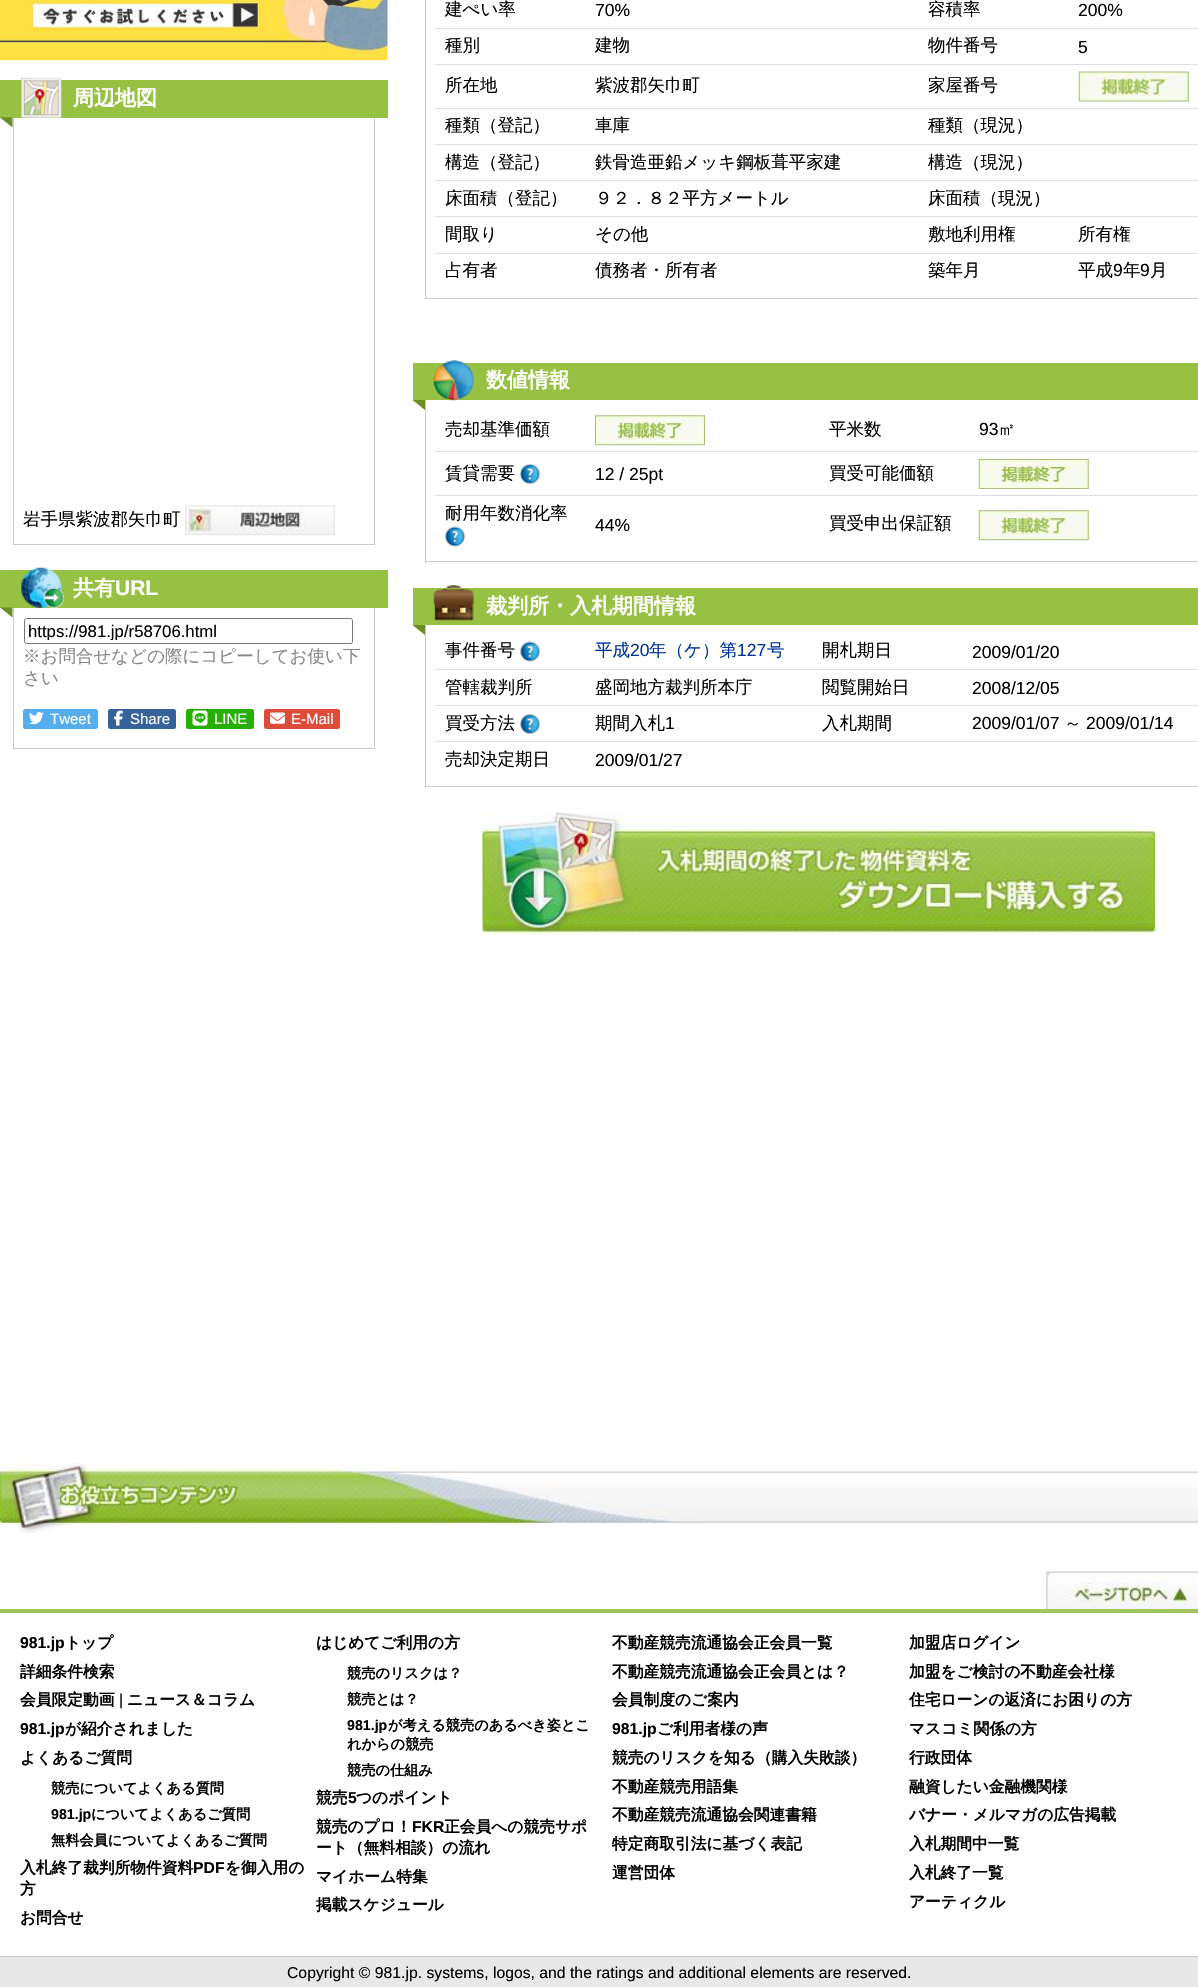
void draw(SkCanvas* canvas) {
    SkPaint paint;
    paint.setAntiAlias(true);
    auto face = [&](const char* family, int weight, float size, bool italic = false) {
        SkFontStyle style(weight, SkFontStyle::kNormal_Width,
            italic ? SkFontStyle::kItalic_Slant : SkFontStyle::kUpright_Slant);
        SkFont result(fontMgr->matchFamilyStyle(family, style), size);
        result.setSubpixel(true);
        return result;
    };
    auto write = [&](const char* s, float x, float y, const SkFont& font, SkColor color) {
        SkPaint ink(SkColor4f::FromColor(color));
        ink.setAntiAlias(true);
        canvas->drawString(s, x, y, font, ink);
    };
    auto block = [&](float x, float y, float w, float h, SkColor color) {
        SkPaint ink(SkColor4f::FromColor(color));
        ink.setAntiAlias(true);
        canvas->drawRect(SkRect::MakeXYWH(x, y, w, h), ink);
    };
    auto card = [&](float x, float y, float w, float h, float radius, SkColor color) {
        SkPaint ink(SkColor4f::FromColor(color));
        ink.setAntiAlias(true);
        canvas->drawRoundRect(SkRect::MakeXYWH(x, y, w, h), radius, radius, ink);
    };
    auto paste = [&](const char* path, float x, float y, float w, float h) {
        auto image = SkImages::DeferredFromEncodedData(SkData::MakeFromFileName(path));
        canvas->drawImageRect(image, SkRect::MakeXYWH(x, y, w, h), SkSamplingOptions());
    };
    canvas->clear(SK_ColorWHITE);
    paste("pic1.png", 0, 0, 388, 61);
    block(0, 80, 388, 38, SkColorSetRGB(151, 193, 67));
    paste("pic2.png", 21, 77, 41, 41);
    auto kFont1 = face("WenQuanYi Zen Hei", 700, 21);
    write("周辺地図", 73, 105, kFont1, SK_ColorWHITE);
    paint.setColor(SkColorSetRGB(106, 141, 36));
    canvas->drawPath(SkPathBuilder().moveTo(12.5f, 117.5f).lineTo(12.5f, 127.5f).lineTo(0, 117.5f).close().detach(), paint);
    block(374, 118, 1, 427, SkColorSetRGB(204, 204, 204));
    block(13, 544, 362, 1, SkColorSetRGB(204, 204, 204));
    block(13, 118, 1, 427, SkColorSetRGB(204, 204, 204));
    auto kFont2 = face("WenQuanYi Zen Hei", 500, 17.5f);
    write("岩手県紫波郡矢巾町", 23, 525, kFont2, SK_ColorBLACK);
    paste("pic3.png", 185, 505, 150, 31);
    block(0, 570, 388, 38, SkColorSetRGB(151, 193, 67));
    paste("pic4.png", 21, 567, 43, 41);
    write("共有", 73, 595, kFont1, SK_ColorWHITE);
    auto kFont3 = face("Liberation Sans", 700, 21);
    write("URL", 115, 595, kFont3, SK_ColorWHITE);
    canvas->drawPath(SkPathBuilder().moveTo(12.5f, 607.5f).lineTo(12.5f, 617.5f).lineTo(0, 607.5f).close().detach(), paint);
    block(374, 608, 1, 141, SkColorSetRGB(204, 204, 204));
    block(13, 748, 362, 1, SkColorSetRGB(204, 204, 204));
    block(13, 608, 1, 141, SkColorSetRGB(204, 204, 204));
    paint.setStyle(SkPaint::kStroke_Style);
    paint.setStrokeWidth(1);
    paint.setColor(SkColorSetRGB(118, 118, 118));
    canvas->drawRoundRect(SkRect::MakeXYWH(24.5f, 618.5f, 328, 25), 2, 2, paint);
    canvas->save();
    canvas->clipRect(SkRect::MakeXYWH(28, 621, 321, 19));
    auto kFont4 = face("Liberation Sans", 400, 16.75f);
    write("https://981.jp/r58706.html", 28, 637, kFont4, SK_ColorBLACK);
    canvas->restore();
    write("※お問合せなどの際にコピーしてお使い下", 23, 662, kFont2, SkColorSetRGB(136, 136, 136));
    write("さい", 23, 684, kFont2, SkColorSetRGB(136, 136, 136));
    card(23, 709, 75, 20, 2.5f, SkColorSetRGB(85, 172, 238));
    paste("pic5.png", 29, 712, 15, 13);
    auto kFont5 = face("Liberation Sans", 400, 15);
    write("Tweet", 50, 724, kFont5, SK_ColorWHITE);
    card(108, 709, 68, 20, 2.5f, SkColorSetRGB(53, 98, 154));
    paste("pic6.png", 114, 710, 9, 16);
    write("Share", 130, 724, kFont5, SK_ColorWHITE);
    card(186, 709, 68, 20, 2.5f, SkColorSetRGB(37, 175, 0));
    paste("pic7.png", 192, 710, 16, 16);
    write("LINE", 214, 724, kFont5, SK_ColorWHITE);
    card(264, 709, 76, 20, 2.5f, SkColorSetRGB(221, 75, 57));
    paste("pic8.png", 270, 712, 15, 12);
    write("E-Mail", 291, 724, kFont5, SK_ColorWHITE);
    block(425, 298, 773, 1, SkColorSetRGB(204, 204, 204));
    block(425, 0, 1, 299, SkColorSetRGB(204, 204, 204));
    block(435, 28, 763, 1, SkColorSetRGB(221, 221, 221));
    write("建ぺい率", 445, 15, kFont2, SK_ColorBLACK);
    auto kFont6 = face("Liberation Sans", 400, 17.5f);
    write("70%", 595, 16, kFont6, SK_ColorBLACK);
    write("容積率", 928, 15, kFont2, SK_ColorBLACK);
    write("200%", 1078, 16, kFont6, SK_ColorBLACK);
    block(435, 64, 763, 1, SkColorSetRGB(221, 221, 221));
    write("種別", 445, 51, kFont2, SK_ColorBLACK);
    write("建物", 595, 51, kFont2, SK_ColorBLACK);
    write("物件番号", 928, 51, kFont2, SK_ColorBLACK);
    write("5", 1078, 53, kFont6, SK_ColorBLACK);
    block(435, 108, 763, 1, SkColorSetRGB(221, 221, 221));
    write("所在地", 445, 91, kFont2, SK_ColorBLACK);
    write("紫波郡矢巾町", 595, 91, kFont2, SK_ColorBLACK);
    write("家屋番号", 928, 91, kFont2, SK_ColorBLACK);
    paste("pic9.png", 1078, 71, 111, 31);
    block(435, 144, 763, 1, SkColorSetRGB(221, 221, 221));
    write("種類（登記）", 445, 131, kFont2, SK_ColorBLACK);
    write("車庫", 595, 131, kFont2, SK_ColorBLACK);
    write("種類（現況）", 928, 131, kFont2, SK_ColorBLACK);
    block(435, 180, 763, 1, SkColorSetRGB(221, 221, 221));
    write("構造（登記）", 445, 168, kFont2, SK_ColorBLACK);
    write("鉄骨造亜鉛メッキ鋼板葺平家建", 595, 168, kFont2, SK_ColorBLACK);
    write("構造（現況）", 928, 168, kFont2, SK_ColorBLACK);
    block(435, 216, 763, 1, SkColorSetRGB(221, 221, 221));
    write("床面積（登記）", 445, 204, kFont2, SK_ColorBLACK);
    write("９２．８２平方メートル", 595, 204, kFont2, SK_ColorBLACK);
    write("床面積（現況）", 928, 204, kFont2, SK_ColorBLACK);
    block(435, 253, 763, 1, SkColorSetRGB(221, 221, 221));
    write("間取り", 445, 240, kFont2, SK_ColorBLACK);
    write("その他", 595, 240, kFont2, SK_ColorBLACK);
    write("敷地利用権", 928, 240, kFont2, SK_ColorBLACK);
    write("所有権", 1078, 240, kFont2, SK_ColorBLACK);
    write("占有者", 445, 276, kFont2, SK_ColorBLACK);
    write("債務者・所有者", 595, 276, kFont2, SK_ColorBLACK);
    write("築年月", 928, 276, kFont2, SK_ColorBLACK);
    write("平成", 1078, 276, kFont2, SK_ColorBLACK);
    write("9", 1113, 276, kFont6, SK_ColorBLACK);
    write("年", 1123, 276, kFont2, SK_ColorBLACK);
    write("9", 1140, 276, kFont6, SK_ColorBLACK);
    write("月", 1150, 276, kFont2, SK_ColorBLACK);
    block(413, 363, 785, 37, SkColorSetRGB(151, 193, 67));
    paste("pic10.png", 433, 360, 41, 41);
    write("数値情報", 486, 387, kFont1, SK_ColorWHITE);
    paint.setStyle(SkPaint::kFill_Style);
    paint.setColor(SkColorSetRGB(106, 141, 36));
    canvas->drawPath(SkPathBuilder().moveTo(425, 400).lineTo(425, 410).lineTo(412.5f, 400).close().detach(), paint);
    block(425, 561, 773, 1, SkColorSetRGB(204, 204, 204));
    block(425, 400, 1, 163, SkColorSetRGB(204, 204, 204));
    block(435, 451, 763, 1, SkColorSetRGB(221, 221, 221));
    write("売却基準価額", 445, 435, kFont2, SK_ColorBLACK);
    paste("pic11.png", 595, 415, 110, 31);
    write("平米数", 829, 435, kFont2, SK_ColorBLACK);
    write("93", 979, 435, kFont6, SK_ColorBLACK);
    write("㎡", 998, 435, kFont2, SK_ColorBLACK);
    block(435, 495, 763, 1, SkColorSetRGB(221, 221, 221));
    write("賃貸需要", 445, 479, kFont2, SK_ColorBLACK);
    paste("pic12.png", 520, 464, 20, 20);
    write("12 / 25pt", 595, 480, kFont6, SK_ColorBLACK);
    write("買受可能価額", 829, 479, kFont2, SK_ColorBLACK);
    paste("pic13.png", 978, 459, 111, 30);
    write("耐用年数消化率", 445, 519, kFont2, SK_ColorBLACK);
    paste("pic14.png", 445, 526, 20, 21);
    write("44%", 595, 531, kFont6, SK_ColorBLACK);
    write("買受申出保証額", 829, 529, kFont2, SK_ColorBLACK);
    paste("pic15.png", 978, 510, 111, 31);
    block(413, 588, 785, 37, SkColorSetRGB(151, 193, 67));
    paste("pic16.png", 433, 585, 41, 36);
    write("裁判所・入札期間情報", 486, 613, kFont1, SK_ColorWHITE);
    canvas->drawPath(SkPathBuilder().moveTo(425, 625).lineTo(425, 635).lineTo(412.5f, 625).close().detach(), paint);
    block(425, 786, 773, 1, SkColorSetRGB(204, 204, 204));
    block(425, 625, 1, 163, SkColorSetRGB(204, 204, 204));
    block(435, 669, 763, 1, SkColorSetRGB(221, 221, 221));
    write("事件番号", 445, 656, kFont2, SK_ColorBLACK);
    paste("pic14.png", 520, 641, 20, 21);
    write("平成", 595, 656, kFont2, SkColorSetRGB(0, 51, 153));
    write("20", 630, 656, kFont6, SkColorSetRGB(0, 51, 153));
    write("年（ケ）第", 649, 656, kFont2, SkColorSetRGB(0, 51, 153));
    write("127", 737, 656, kFont6, SkColorSetRGB(0, 51, 153));
    write("号", 767, 656, kFont2, SkColorSetRGB(0, 51, 153));
    write("開札期日", 822, 656, kFont2, SK_ColorBLACK);
    write("2009/01/20", 972, 658, kFont6, SK_ColorBLACK);
    block(435, 705, 763, 1, SkColorSetRGB(221, 221, 221));
    write("管轄裁判所", 445, 693, kFont2, SK_ColorBLACK);
    write("盛岡地方裁判所本庁", 595, 693, kFont2, SK_ColorBLACK);
    write("閲覧開始日", 822, 693, kFont2, SK_ColorBLACK);
    write("2008/12/05", 972, 694, kFont6, SK_ColorBLACK);
    block(435, 741, 763, 1, SkColorSetRGB(221, 221, 221));
    write("買受方法", 445, 729, kFont2, SK_ColorBLACK);
    paste("pic12.png", 520, 714, 20, 20);
    write("期間入札", 595, 729, kFont2, SK_ColorBLACK);
    write("1", 665, 729, kFont6, SK_ColorBLACK);
    write("入札期間", 822, 729, kFont2, SK_ColorBLACK);
    write("2009/01/07", 972, 729, kFont6, SK_ColorBLACK);
    write("～", 1064, 729, kFont2, SK_ColorBLACK);
    write("2009/01/14", 1086, 729, kFont6, SK_ColorBLACK);
    write("売却決定期日", 445, 765, kFont2, SK_ColorBLACK);
    write("2009/01/27", 595, 766, kFont6, SK_ColorBLACK);
    paste("pic17.png", 482, 812, 673, 123);
    paste("pic18.png", 0, 1463, 1198, 71);
    block(0, 1609, 1198, 4, SkColorSetRGB(159, 198, 92));
    paste("pic19.png", 1046, 1571, 152, 38);
    auto kFont7 = face("Liberation Sans", 700, 15.75f);
    write("981.jp", 20, 1648, kFont7, SK_ColorBLACK);
    auto kFont8 = face("WenQuanYi Zen Hei", 700, 15.75f);
    write("トップ", 65, 1648, kFont8, SK_ColorBLACK);
    write("詳細条件検索", 20, 1677, kFont8, SK_ColorBLACK);
    write("会員限定動画", 20, 1705, kFont8, SK_ColorBLACK);
    auto kFont9 = face("Liberation Sans", 400, 15.75f);
    write("|", 119, 1705, kFont9, SK_ColorBLACK);
    write("ニュース＆コラム", 127, 1705, kFont8, SK_ColorBLACK);
    write("981.jp", 20, 1734, kFont7, SK_ColorBLACK);
    write("が紹介されました", 65, 1734, kFont8, SK_ColorBLACK);
    write("よくあるご質問", 20, 1763, kFont8, SK_ColorBLACK);
    auto kFont10 = face("WenQuanYi Zen Hei", 700, 14.2f);
    write("競売についてよくある質問", 51, 1793, kFont10, SK_ColorBLACK);
    auto kFont11 = face("Liberation Sans", 700, 14.2f);
    write("981.jp", 51, 1819, kFont11, SK_ColorBLACK);
    write("についてよくあるご質問", 91, 1819, kFont10, SK_ColorBLACK);
    write("無料会員についてよくあるご質問", 51, 1845, kFont10, SK_ColorBLACK);
    write("入札終了裁判所物件資料", 20, 1873, kFont8, SK_ColorBLACK);
    write("PDF", 193, 1873, kFont7, SK_ColorBLACK);
    write("を御入用の", 225, 1873, kFont8, SK_ColorBLACK);
    write("方", 20, 1894, kFont8, SK_ColorBLACK);
    write("お問合せ", 20, 1923, kFont8, SK_ColorBLACK);
    write("はじめてご利用の方", 316, 1648, kFont8, SK_ColorBLACK);
    write("競売のリスクは？", 347, 1678, kFont10, SK_ColorBLACK);
    write("競売とは？", 347, 1704, kFont10, SK_ColorBLACK);
    write("981.jp", 347, 1730, kFont11, SK_ColorBLACK);
    write("が考える競売のあるべき姿とこ", 388, 1730, kFont10, SK_ColorBLACK);
    write("れからの競売", 347, 1749, kFont10, SK_ColorBLACK);
    write("競売の仕組み", 347, 1775, kFont10, SK_ColorBLACK);
    write("競売", 316, 1803, kFont8, SK_ColorBLACK);
    write("5", 348, 1803, kFont7, SK_ColorBLACK);
    write("つのポイント", 356, 1803, kFont8, SK_ColorBLACK);
    write("競売のプロ！", 316, 1832, kFont8, SK_ColorBLACK);
    write("FKR", 412, 1832, kFont7, SK_ColorBLACK);
    write("正会員への競売サポ", 444, 1832, kFont8, SK_ColorBLACK);
    write("ート（無料相談）の流れ", 316, 1853, kFont8, SK_ColorBLACK);
    write("マイホーム特集", 316, 1882, kFont8, SK_ColorBLACK);
    write("掲載スケジュール", 316, 1910, kFont8, SK_ColorBLACK);
    write("不動産競売流通協会正会員一覧", 612, 1648, kFont8, SK_ColorBLACK);
    write("不動産競売流通協会正会員とは？", 612, 1677, kFont8, SK_ColorBLACK);
    write("会員制度のご案内", 612, 1705, kFont8, SK_ColorBLACK);
    write("981.jp", 612, 1734, kFont7, SK_ColorBLACK);
    write("ご利用者様の声", 657, 1734, kFont8, SK_ColorBLACK);
    write("競売のリスクを知る（購入失敗談）", 612, 1763, kFont8, SK_ColorBLACK);
    write("不動産競売用語集", 612, 1792, kFont8, SK_ColorBLACK);
    write("不動産競売流通協会関連書籍", 612, 1820, kFont8, SK_ColorBLACK);
    write("特定商取引法に基づく表記", 612, 1849, kFont8, SK_ColorBLACK);
    write("運営団体", 612, 1878, kFont8, SK_ColorBLACK);
    write("加盟店ログイン", 909, 1648, kFont8, SK_ColorBLACK);
    write("加盟をご検討の不動産会社様", 909, 1677, kFont8, SK_ColorBLACK);
    write("住宅ローンの返済にお困りの方", 909, 1705, kFont8, SK_ColorBLACK);
    write("マスコミ関係の方", 909, 1734, kFont8, SK_ColorBLACK);
    write("行政団体", 909, 1763, kFont8, SK_ColorBLACK);
    write("融資したい金融機関様", 909, 1792, kFont8, SK_ColorBLACK);
    write("バナー・メルマガの広告掲載", 909, 1820, kFont8, SK_ColorBLACK);
    write("入札期間中一覧", 909, 1849, kFont8, SK_ColorBLACK);
    write("入札終了一覧", 909, 1878, kFont8, SK_ColorBLACK);
    write("アーティクル", 909, 1907, kFont8, SK_ColorBLACK);
    block(0, 1957, 1198, 30, SkColorSetRGB(232, 232, 232));
    block(0, 1956, 1198, 1, SkColorSetRGB(204, 204, 204));
    write("Copyright © 981.jp. systems, logos, and the ratings and additional elements are reserved.", 287, 1978, kFont9, SK_ColorBLACK);
}
